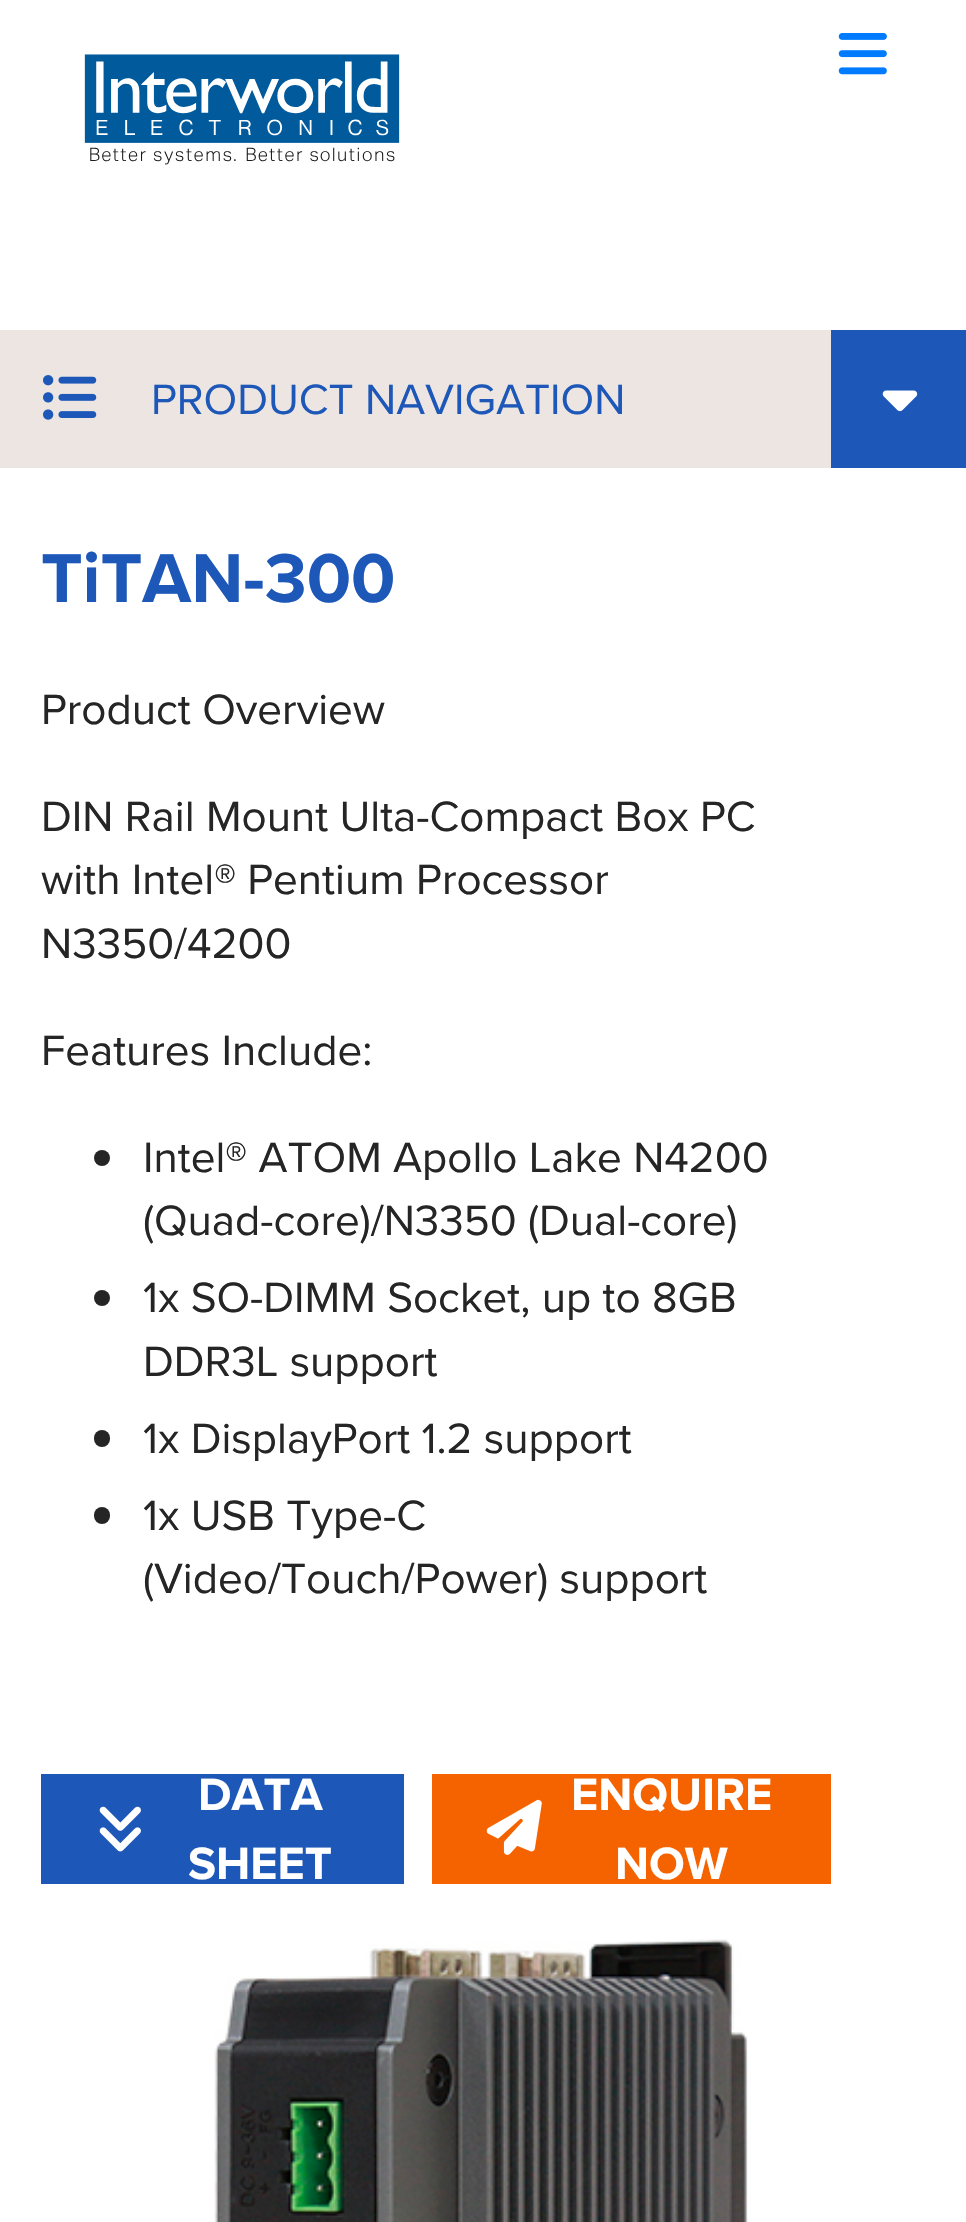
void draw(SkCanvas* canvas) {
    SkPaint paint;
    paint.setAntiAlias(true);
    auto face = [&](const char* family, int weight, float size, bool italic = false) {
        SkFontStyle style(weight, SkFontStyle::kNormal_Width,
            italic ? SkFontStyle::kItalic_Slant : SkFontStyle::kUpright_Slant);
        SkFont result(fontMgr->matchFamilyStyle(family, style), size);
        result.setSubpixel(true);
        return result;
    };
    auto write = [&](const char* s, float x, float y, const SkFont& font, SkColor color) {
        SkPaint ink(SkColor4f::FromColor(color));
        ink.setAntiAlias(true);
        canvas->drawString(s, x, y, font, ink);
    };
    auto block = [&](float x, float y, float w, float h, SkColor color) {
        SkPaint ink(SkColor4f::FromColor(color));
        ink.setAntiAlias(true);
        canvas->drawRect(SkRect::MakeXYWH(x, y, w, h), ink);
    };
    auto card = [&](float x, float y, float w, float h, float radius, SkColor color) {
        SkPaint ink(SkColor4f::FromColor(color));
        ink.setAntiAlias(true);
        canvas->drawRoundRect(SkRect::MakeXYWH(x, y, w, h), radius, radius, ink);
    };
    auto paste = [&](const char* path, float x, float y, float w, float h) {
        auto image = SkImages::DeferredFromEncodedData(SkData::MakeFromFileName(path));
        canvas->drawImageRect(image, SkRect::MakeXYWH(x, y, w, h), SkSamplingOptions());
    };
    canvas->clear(SK_ColorWHITE);
    paste("pic1.png", 84, 54, 316, 111);
    paste("pic2.png", 838, 33, 49, 42);
    block(0, 330, 831, 138, SkColorSetRGB(236, 229, 225));
    paste("pic3.png", 43, 375, 54, 45);
    auto kFont1 = face("Proxima Nova", 400, 44);
    write("PRODUCT NAVIGATION", 151, 414, kFont1, SkColorSetRGB(29, 88, 185));
    block(831, 330, 135, 138, SkColorSetRGB(29, 88, 185));
    paste("pic4.png", 882, 390, 36, 22);
    auto kFont2 = face("Proxima Nova", 700, 71.5f);
    write("TiTAN-300", 41, 602, kFont2, SkColorSetRGB(29, 88, 185));
    write("Product Overview", 41, 724, kFont1, SkColorSetRGB(37, 37, 37));
    write("DIN Rail Mount Ulta-Compact Box PC", 41, 831, kFont1, SkColorSetRGB(37, 37, 37));
    write("with Intel® Pentium Processor", 41, 894, kFont1, SkColorSetRGB(37, 37, 37));
    write("N3350/4200", 41, 958, kFont1, SkColorSetRGB(37, 37, 37));
    write("Features Include:", 41, 1065, kFont1, SkColorSetRGB(37, 37, 37));
    paint.setColor(SkColorSetRGB(37, 37, 37));
    canvas->drawCircle(102, 1158, 8, paint);
    write("Intel® ATOM Apollo Lake N4200", 143, 1172, kFont1, SkColorSetRGB(37, 37, 37));
    write("(Quad-core)/N3350 (Dual-core)", 143, 1235, kFont1, SkColorSetRGB(37, 37, 37));
    canvas->drawCircle(102, 1298, 8, paint);
    write("1x SO-DIMM Socket, up to 8GB", 143, 1312, kFont1, SkColorSetRGB(37, 37, 37));
    write("DDR3L support", 143, 1376, kFont1, SkColorSetRGB(37, 37, 37));
    card(94, 1430, 16, 17, 8, SkColorSetRGB(37, 37, 37));
    write("1x DisplayPort 1.2 support", 143, 1453, kFont1, SkColorSetRGB(37, 37, 37));
    card(94, 1507, 16, 17, 8, SkColorSetRGB(37, 37, 37));
    write("1x USB Type-C", 143, 1530, kFont1, SkColorSetRGB(37, 37, 37));
    write("(Video/Touch/Power) support", 143, 1593, kFont1, SkColorSetRGB(37, 37, 37));
    block(41, 1774, 363, 110, SkColorSetRGB(29, 88, 185));
    auto kFont3 = face("Proxima Nova", 700, 46.75f);
    write("DATA", 198, 1810, kFont3, SK_ColorWHITE);
    paste("pic5.png", 99, 1806, 42, 46);
    write("SHEET", 188, 1879, kFont3, SK_ColorWHITE);
    block(432, 1774, 399, 110, SkColorSetRGB(245, 99, 0));
    write("ENQUIRE", 571, 1810, kFont3, SK_ColorWHITE);
    paste("pic6.png", 486, 1799, 56, 56);
    write("NOW", 615, 1879, kFont3, SK_ColorWHITE);
    paste("pic7.png", 214, 1939, 534, 283);
}
